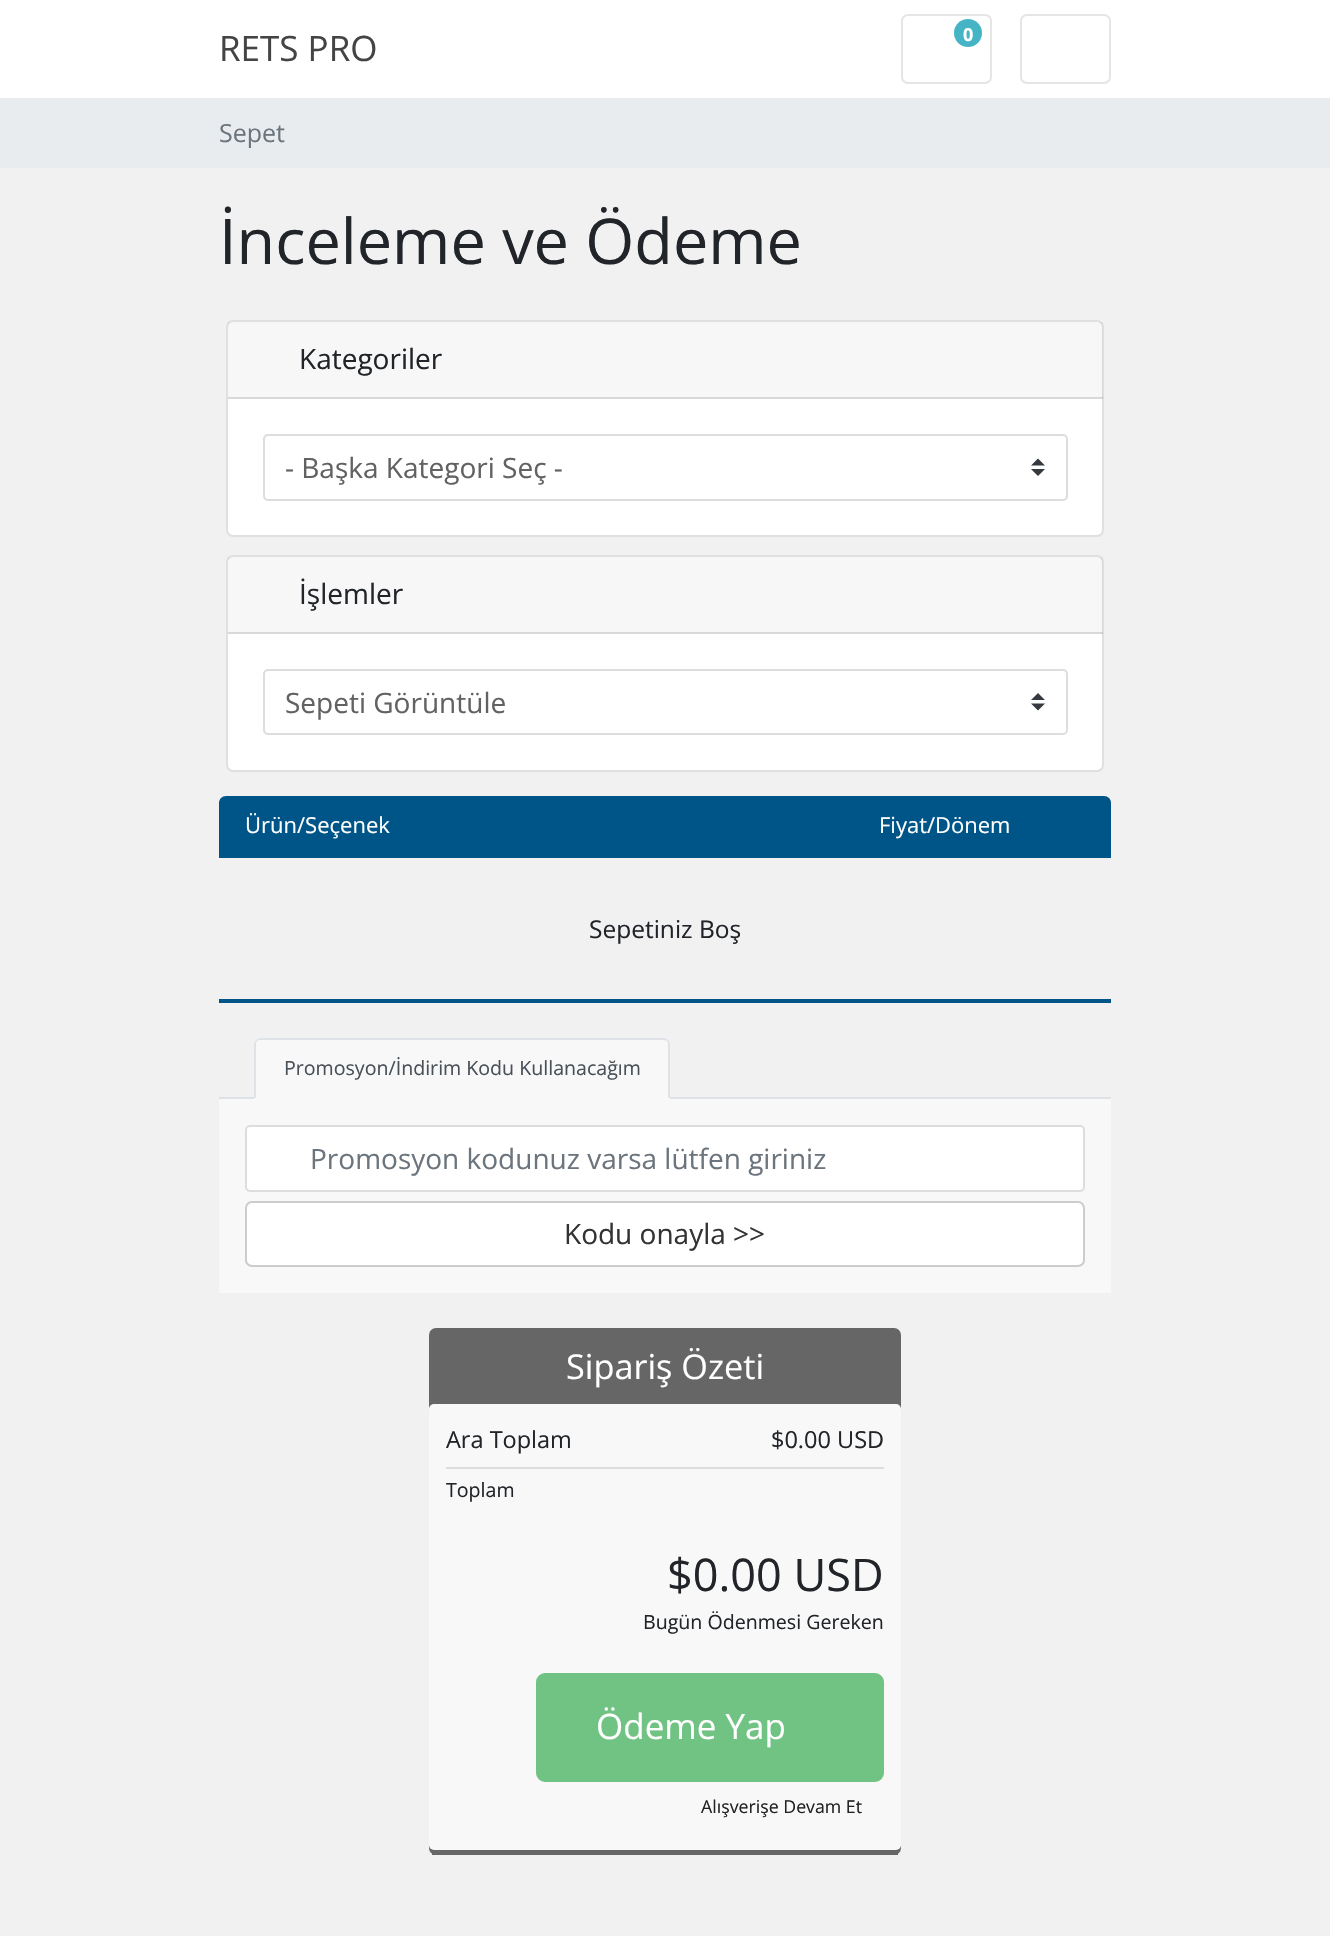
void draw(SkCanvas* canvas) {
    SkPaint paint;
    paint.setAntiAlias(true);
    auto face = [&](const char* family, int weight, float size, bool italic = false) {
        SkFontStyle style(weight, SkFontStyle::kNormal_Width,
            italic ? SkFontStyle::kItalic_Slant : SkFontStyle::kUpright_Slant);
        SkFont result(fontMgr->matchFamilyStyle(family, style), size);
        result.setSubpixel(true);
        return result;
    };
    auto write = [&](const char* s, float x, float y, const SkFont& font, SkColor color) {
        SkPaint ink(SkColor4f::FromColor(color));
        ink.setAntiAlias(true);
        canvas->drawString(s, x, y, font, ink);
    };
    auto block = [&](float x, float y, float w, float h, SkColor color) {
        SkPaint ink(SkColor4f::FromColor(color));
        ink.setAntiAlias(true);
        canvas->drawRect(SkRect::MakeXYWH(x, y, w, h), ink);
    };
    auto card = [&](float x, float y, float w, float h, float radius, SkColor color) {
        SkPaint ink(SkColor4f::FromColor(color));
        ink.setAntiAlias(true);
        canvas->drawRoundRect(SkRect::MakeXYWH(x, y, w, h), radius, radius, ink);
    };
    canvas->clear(SkColorSetRGB(241, 241, 241));
    block(0, 0, 1330, 98, SK_ColorWHITE);
    auto kFont1 = face("Open Sans", 400, 35);
    write("RETS PRO", 219, 61, kFont1, SkColorSetRGB(68, 68, 68));
    paint.setStyle(SkPaint::kStroke_Style);
    paint.setStrokeWidth(2);
    paint.setColor(SkColorSetRGB(229, 229, 229));
    canvas->drawRoundRect(SkRect::MakeXYWH(902, 15, 89, 68), 6, 6, paint);
    paint.setStyle(SkPaint::kFill_Style);
    paint.setColor(SkColorSetRGB(69, 181, 198));
    canvas->drawCircle(968, 33, 14, paint);
    auto kFont2 = face("Open Sans", 700, 18);
    write("0", 963, 41, kFont2, SK_ColorWHITE);
    paint.setStyle(SkPaint::kStroke_Style);
    paint.setColor(SkColorSetRGB(229, 229, 229));
    canvas->drawRoundRect(SkRect::MakeXYWH(1021, 15, 89, 68), 6, 6, paint);
    block(0, 98, 1330, 70, SkColorSetRGB(233, 236, 239));
    auto kFont3 = face("Open Sans", 400, 25);
    write("Sepet", 219, 142, kFont3, SkColorSetRGB(108, 117, 125));
    auto kFont4 = face("Open Sans", 400, 63);
    write("İnceleme ve Ödeme", 219, 264, kFont4, SkColorSetRGB(33, 37, 41));
    card(226, 320, 878, 217, 7, SK_ColorWHITE);
    paint.setColor(SkColorSetARGB(31, 0, 0, 0));
    canvas->drawRoundRect(SkRect::MakeXYWH(227, 321, 876, 215), 6, 6, paint);
    block(228, 322, 875, 77, SkColorSetARGB(8, 0, 0, 0));
    block(228, 397, 875, 2, SkColorSetARGB(31, 0, 0, 0));
    auto kFont5 = face("Open Sans", 400, 28);
    write("Kategoriler", 299, 369, kFont5, SkColorSetRGB(33, 37, 41));
    paint.setStyle(SkPaint::kFill_Style);
    paint.setColor(SkColorSetRGB(52, 58, 64));
    canvas->drawPath(SkPathBuilder().moveTo(1038, 458.5f).lineTo(1031, 465.5f).lineTo(1045, 465.5f).close().moveTo(1038, 476).lineTo(1031, 469).lineTo(1045, 469).close().detach(), paint);
    paint.setStyle(SkPaint::kStroke_Style);
    paint.setColor(SkColorSetRGB(221, 221, 221));
    canvas->drawRoundRect(SkRect::MakeXYWH(264, 435, 803, 65), 4, 4, paint);
    write("- Başka Kategori Seç -", 285, 478, kFont5, SkColorSetRGB(98, 98, 98));
    card(226, 555, 878, 217, 7, SK_ColorWHITE);
    paint.setColor(SkColorSetARGB(31, 0, 0, 0));
    canvas->drawRoundRect(SkRect::MakeXYWH(227, 556, 876, 215), 6, 6, paint);
    block(228, 557, 875, 77, SkColorSetARGB(8, 0, 0, 0));
    block(228, 632, 875, 2, SkColorSetARGB(31, 0, 0, 0));
    write("İşlemler", 299, 604, kFont5, SkColorSetRGB(33, 37, 41));
    paint.setStyle(SkPaint::kFill_Style);
    paint.setColor(SkColorSetRGB(52, 58, 64));
    canvas->drawPath(SkPathBuilder().moveTo(1038, 693).lineTo(1031, 700).lineTo(1045, 700).close().moveTo(1038, 710.5f).lineTo(1031, 703.5f).lineTo(1045, 703.5f).close().detach(), paint);
    paint.setStyle(SkPaint::kStroke_Style);
    paint.setColor(SkColorSetRGB(221, 221, 221));
    canvas->drawRoundRect(SkRect::MakeXYWH(264, 670, 803, 64), 4, 4, paint);
    write("Sepeti Görüntüle", 285, 713, kFont5, SkColorSetRGB(98, 98, 98));
    paint.setStyle(SkPaint::kFill_Style);
    paint.setColor(SkColorSetRGB(0, 85, 136));
    canvas->drawPath(SkPathBuilder().moveTo(226, 796).lineTo(1104, 796).cubicTo(1108, 796, 1111, 799, 1111, 803).lineTo(1111, 858).lineTo(219, 858).lineTo(219, 803).cubicTo(219, 799, 222, 796, 226, 796).close().detach(), paint);
    auto kFont6 = face("Open Sans", 400, 22);
    write("Ürün/Seçenek", 245, 833, kFont6, SK_ColorWHITE);
    write("Fiyat/Dönem", 879, 833, kFont6, SK_ColorWHITE);
    block(219, 999, 892, 4, SkColorSetRGB(0, 85, 136));
    auto kFont7 = face("Open Sans", 400, 24.5f);
    write("Sepetiniz Boş", 589, 938, kFont7, SkColorSetRGB(33, 37, 41));
    block(219, 1097, 892, 2, SkColorSetRGB(222, 226, 230));
    paint.setColor(SkColorSetRGB(248, 248, 248));
    canvas->drawPath(SkPathBuilder().moveTo(261, 1038).lineTo(663, 1038).cubicTo(667, 1038, 670, 1041, 670, 1045).lineTo(670, 1099).lineTo(254, 1099).lineTo(254, 1045).cubicTo(254, 1041, 257, 1038, 261, 1038).close().detach(), paint);
    paint.setColor(SkColorSetRGB(222, 226, 230));
    canvas->drawPath(SkPathBuilder().moveTo(261, 1038).cubicTo(259, 1038, 257, 1039, 256, 1040).lineTo(257, 1041).cubicTo(258, 1040, 260, 1040, 261, 1040).lineTo(663, 1040).cubicTo(664, 1040, 666, 1040, 667, 1041).lineTo(668, 1040).cubicTo(667, 1039, 665, 1038, 663, 1038).close().detach(), paint);
    canvas->drawPath(SkPathBuilder().moveTo(670, 1099).lineTo(670, 1045).cubicTo(670, 1043, 669, 1041, 668, 1040).lineTo(667, 1041).cubicTo(668, 1042, 668, 1044, 668, 1045).lineTo(668, 1097).close().detach(), paint);
    paint.setColor(SkColorSetRGB(248, 248, 248));
    canvas->drawPath(SkPathBuilder().moveTo(254, 1099).lineTo(670, 1099).lineTo(668, 1097).lineTo(256, 1097).close().detach(), paint);
    paint.setColor(SkColorSetRGB(222, 226, 230));
    canvas->drawPath(SkPathBuilder().moveTo(256, 1040).cubicTo(255, 1041, 254, 1043, 254, 1045).lineTo(254, 1099).lineTo(256, 1097).lineTo(256, 1045).cubicTo(256, 1044, 256, 1042, 257, 1041).close().detach(), paint);
    auto kFont8 = face("Open Sans", 400, 19.6f);
    write("Promosyon/İndirim Kodu Kullanacağım", 284, 1075, kFont8, SkColorSetRGB(73, 80, 87));
    block(219, 1099, 892, 194, SkColorSetRGB(248, 248, 248));
    paint.setColor(SK_ColorWHITE);
    canvas->drawRoundRect(SkRect::MakeXYWH(246, 1126, 838, 65), 4, 4, paint);
    paint.setStyle(SkPaint::kStroke_Style);
    paint.setColor(SkColorSetRGB(221, 221, 221));
    canvas->drawRoundRect(SkRect::MakeXYWH(246, 1126, 838, 65), 4, 4, paint);
    write("Promosyon kodunuz varsa lütfen giriniz", 310, 1169, kFont5, SkColorSetRGB(108, 117, 125));
    paint.setStyle(SkPaint::kFill_Style);
    paint.setColor(SK_ColorWHITE);
    canvas->drawRoundRect(SkRect::MakeXYWH(246, 1202, 838, 64), 6, 6, paint);
    paint.setStyle(SkPaint::kStroke_Style);
    paint.setColor(SkColorSetRGB(204, 204, 204));
    canvas->drawRoundRect(SkRect::MakeXYWH(246, 1202, 838, 64), 6, 6, paint);
    write("Kodu onayla >>", 564, 1244, kFont5, SkColorSetRGB(51, 51, 51));
    card(429, 1328, 472, 527, 7, SkColorSetRGB(102, 102, 102));
    block(432, 1853, 466, 2, SkColorSetRGB(102, 102, 102));
    auto kFont9 = face("Open Sans", 400, 34.25f);
    write("Sipariş Özeti", 566, 1379, kFont9, SK_ColorWHITE);
    card(429, 1404, 472, 446, 5, SkColorSetRGB(248, 248, 248));
    block(446, 1467, 438, 2, SkColorSetRGB(221, 221, 221));
    auto kFont10 = face("Open Sans", 400, 23.5f);
    write("Ara Toplam", 446, 1448, kFont10, SkColorSetRGB(33, 37, 41));
    write("$0.00 USD", 771, 1448, kFont10, SkColorSetRGB(33, 37, 41));
    write("Toplam", 446, 1497, kFont8, SkColorSetRGB(33, 37, 41));
    auto kFont11 = face("Open Sans", 400, 45);
    write("$0.00 USD", 667, 1591, kFont11, SkColorSetRGB(33, 37, 41));
    write("Bugün Ödenmesi Gereken", 643, 1629, kFont8, SkColorSetRGB(33, 37, 41));
    paint.setStyle(SkPaint::kFill_Style);
    paint.setColor(SkColorSetRGB(113, 195, 132));
    canvas->drawRoundRect(SkRect::MakeXYWH(537, 1674, 346, 107), 8, 8, paint);
    paint.setStyle(SkPaint::kStroke_Style);
    canvas->drawRoundRect(SkRect::MakeXYWH(537, 1674, 346, 107), 8, 8, paint);
    write("Ödeme Yap", 596, 1739, kFont1, SK_ColorWHITE);
    auto kFont12 = face("Open Sans", 400, 17.75f);
    write("Alışverişe Devam Et", 701, 1813, kFont12, SkColorSetRGB(34, 34, 34));
}
